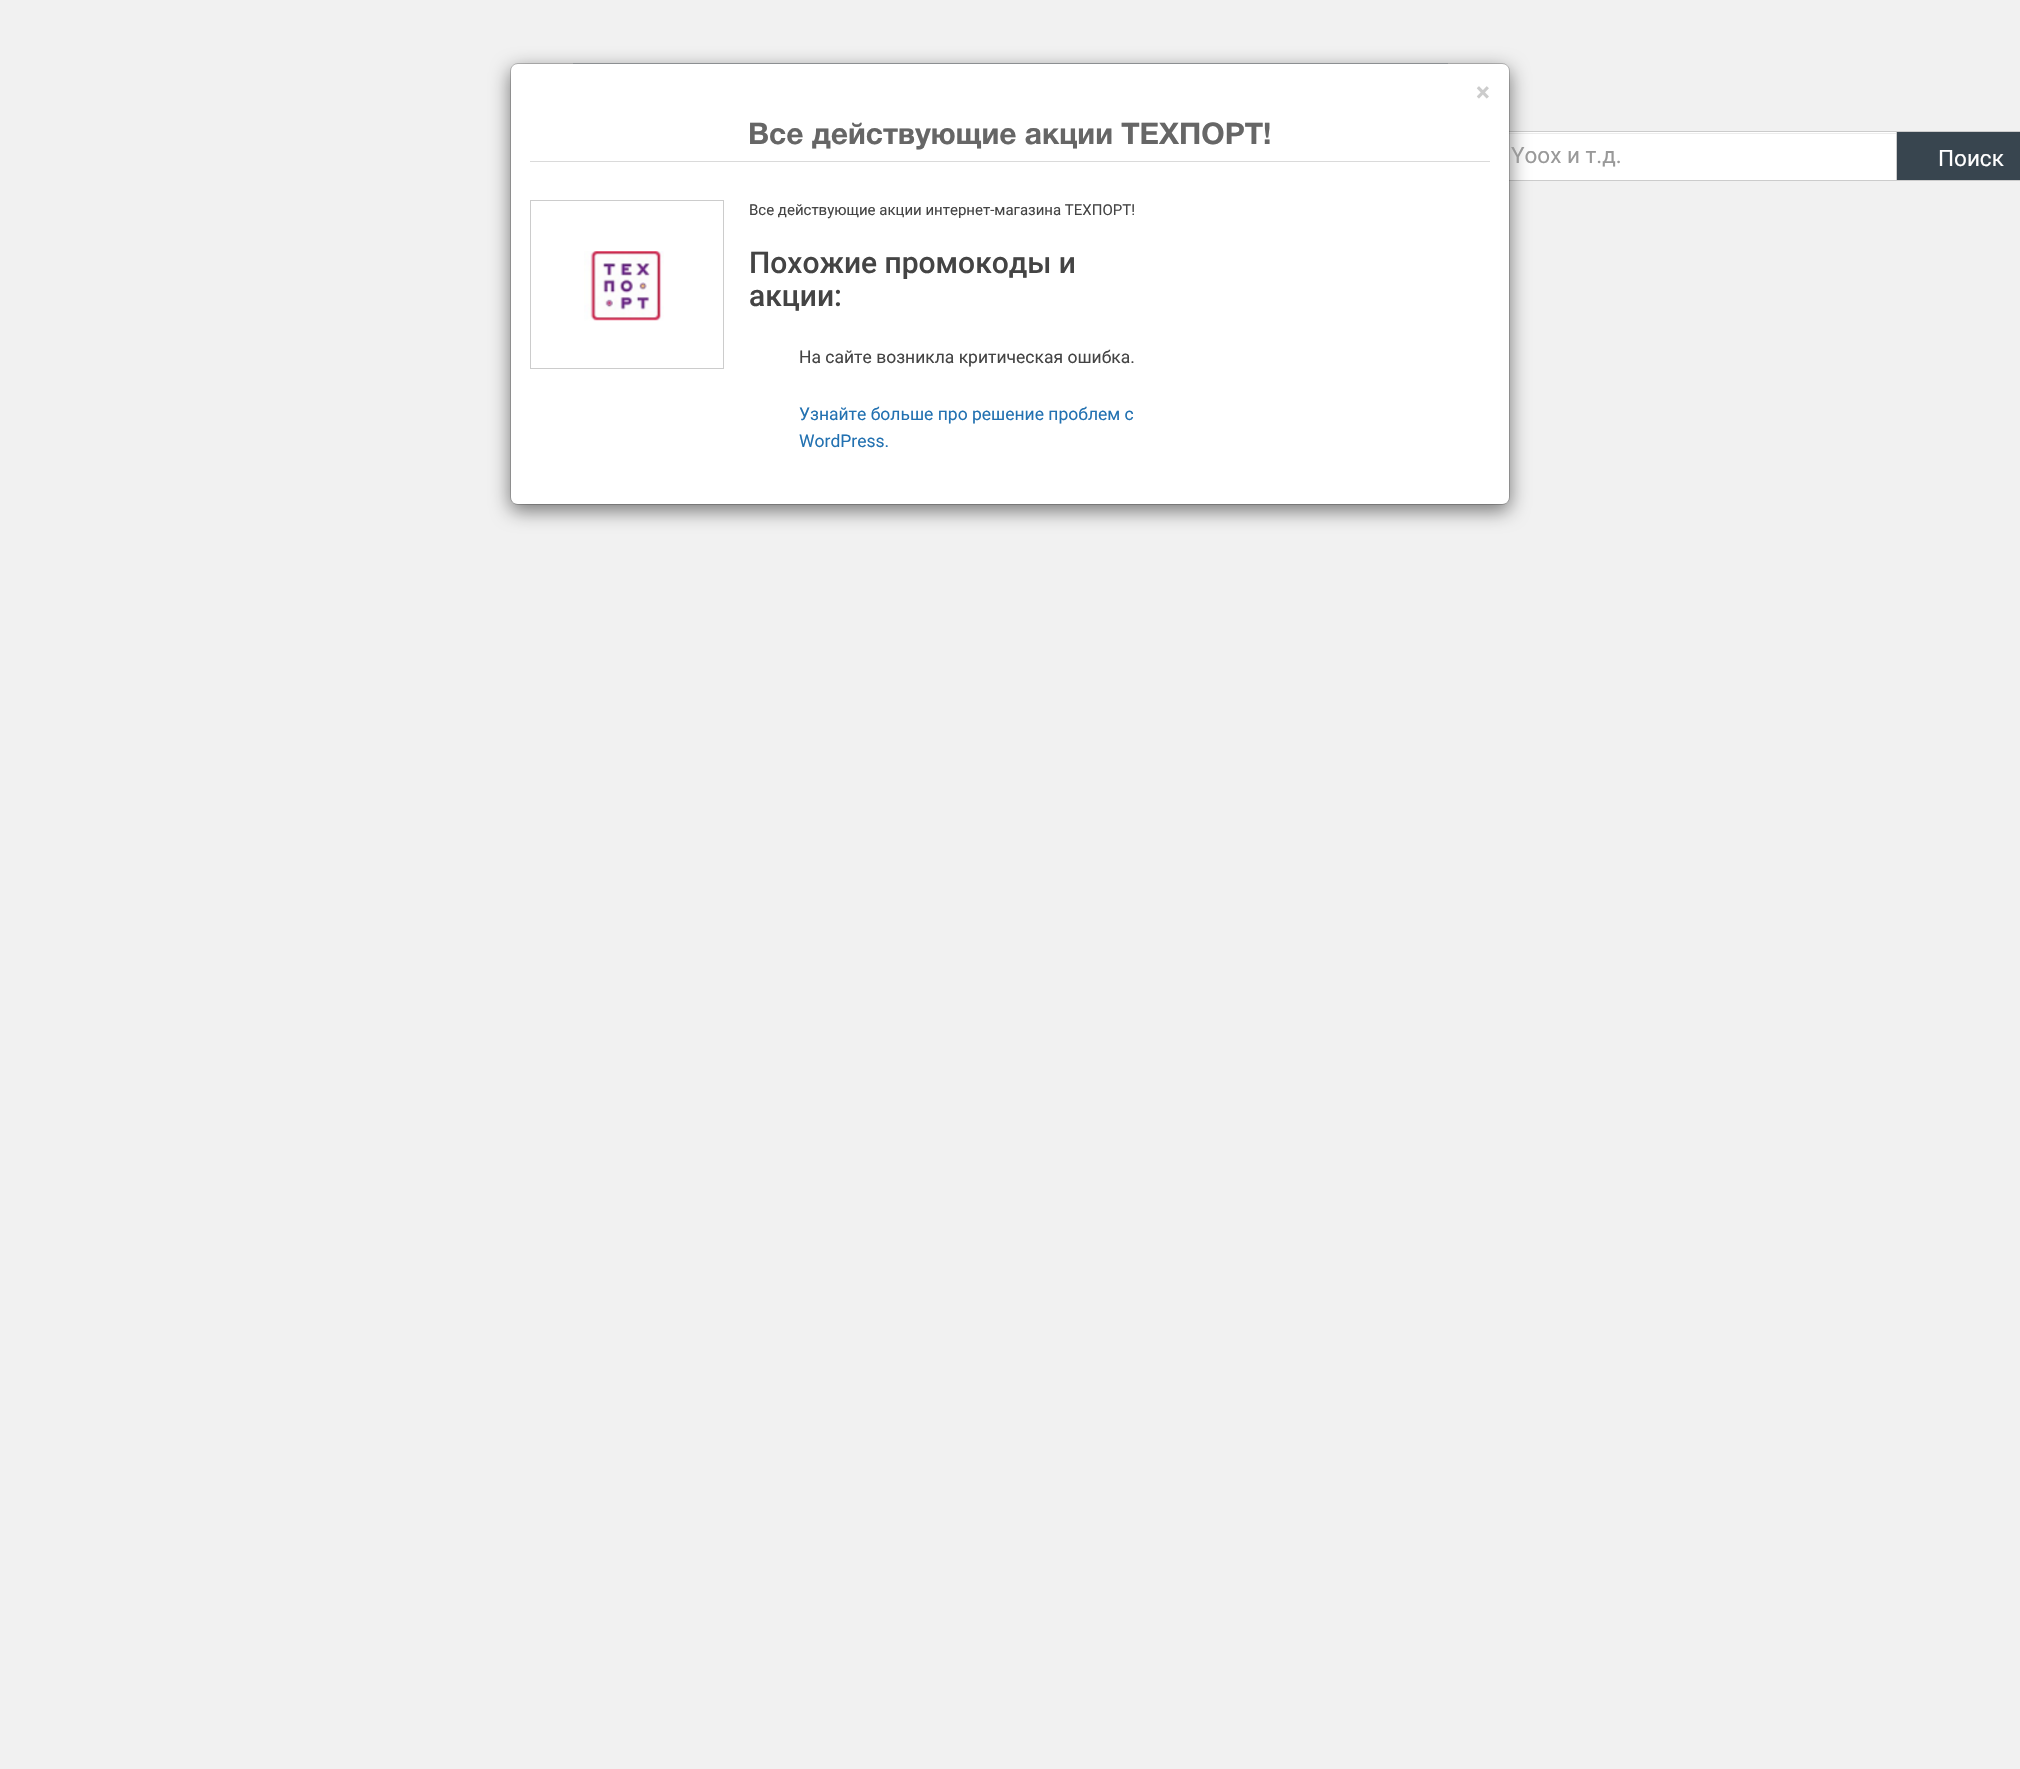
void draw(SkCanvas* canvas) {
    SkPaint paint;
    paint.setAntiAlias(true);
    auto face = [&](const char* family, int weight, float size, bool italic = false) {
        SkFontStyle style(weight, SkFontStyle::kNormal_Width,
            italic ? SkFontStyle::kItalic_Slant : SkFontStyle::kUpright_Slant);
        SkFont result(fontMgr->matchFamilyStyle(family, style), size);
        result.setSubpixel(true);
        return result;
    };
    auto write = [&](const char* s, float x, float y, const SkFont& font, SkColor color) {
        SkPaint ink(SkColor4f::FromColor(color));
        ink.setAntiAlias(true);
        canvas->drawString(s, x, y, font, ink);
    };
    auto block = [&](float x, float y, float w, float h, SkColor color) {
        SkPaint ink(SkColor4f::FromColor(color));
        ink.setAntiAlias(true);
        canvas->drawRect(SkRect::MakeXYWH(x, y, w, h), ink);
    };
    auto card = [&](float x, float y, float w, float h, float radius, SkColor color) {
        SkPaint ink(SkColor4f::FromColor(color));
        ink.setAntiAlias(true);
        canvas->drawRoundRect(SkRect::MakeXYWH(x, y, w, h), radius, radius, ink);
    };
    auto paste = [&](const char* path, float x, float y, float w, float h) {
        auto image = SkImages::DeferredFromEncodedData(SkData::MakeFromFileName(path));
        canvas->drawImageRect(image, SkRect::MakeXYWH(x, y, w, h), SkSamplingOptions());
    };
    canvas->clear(SkColorSetRGB(241, 241, 241));
    paint.setStyle(SkPaint::kStroke_Style);
    paint.setStrokeWidth(1);
    paint.setColor(SkColorSetRGB(204, 208, 212));
    canvas->drawRect(SkRect::MakeXYWH(573.5f, 63.5f, 874, 186), paint);
    block(1509, 132, 387, 48, SK_ColorWHITE);
    paint.setStyle(SkPaint::kFill_Style);
    paint.setColor(SkColorSetRGB(236, 236, 236));
    canvas->drawPath(SkPathBuilder().moveTo(1345, 134).lineTo(1896, 134).lineTo(1896, 133).lineTo(1345, 133).cubicTo(1342, 133, 1341, 135, 1341, 138).cubicTo(1341, 135, 1343, 134, 1345, 134).close().detach(), paint);
    paint.setStyle(SkPaint::kStroke_Style);
    paint.setColor(SkColorSetRGB(204, 204, 204));
    canvas->drawRect(SkRect::MakeXYWH(1340.5f, 131.5f, 557, 49), paint);
    paint.setStyle(SkPaint::kFill_Style);
    paint.setColor(SkColorSetARGB(128, 0, 0, 0));
    paint.setMaskFilter(SkMaskFilter::MakeBlur(kNormal_SkBlurStyle, 9.5f));
    canvas->drawRoundRect(SkRect::MakeXYWH(510, 69, 1000, 442), 8, 8, paint);
    paint.setMaskFilter(nullptr);
    card(511, 64, 998, 440, 6, SK_ColorWHITE);
    paint.setStyle(SkPaint::kStroke_Style);
    paint.setColor(SkColorSetARGB(51, 0, 0, 0));
    canvas->drawRoundRect(SkRect::MakeXYWH(510.5f, 63.5f, 999, 441), 7.5f, 7.5f, paint);
    auto kFont1 = face("Roboto", 700, 26);
    write("×", 1476, 101, kFont1, SkColorSetRGB(204, 204, 204));
    block(530, 161, 960, 1, SkColorSetRGB(218, 218, 218));
    auto kFont2 = face("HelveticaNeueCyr", 700, 30);
    write("Все действующие акции ТЕХПОРТ!", 748, 144, kFont2, SkColorSetRGB(102, 102, 102));
    paint.setColor(SkColorSetRGB(204, 204, 204));
    canvas->drawRect(SkRect::MakeXYWH(530.5f, 200.5f, 193, 168), paint);
    paste("pic1.png", 584, 251, 80, 70);
    auto kFont3 = face("Roboto", 400, 15);
    write("Все действующие акции интернет-магазина ТЕХПОРТ!", 749, 215, kFont3, SkColorSetRGB(68, 68, 68));
    auto kFont4 = face("Roboto", 500, 30);
    write("Похожие промокоды и", 749, 273, kFont4, SkColorSetRGB(68, 68, 68));
    write("акции:", 749, 306, kFont4, SkColorSetRGB(68, 68, 68));
    auto kFont5 = face("Roboto", 400, 17.5f);
    write("На сайте возникла критическая ошибка.", 799, 363, kFont5, SkColorSetRGB(68, 68, 68));
    write("Узнайте больше про решение проблем с", 799, 420, kFont5, SkColorSetRGB(34, 113, 177));
    write("WordPress.", 799, 447, kFont5, SkColorSetRGB(34, 113, 177));
    auto kFont6 = face("Roboto", 400, 22.5f);
    write("Yoox и т.д.", 1511, 163, kFont6, SkColorSetRGB(153, 153, 153));
    paint.setStyle(SkPaint::kFill_Style);
    paint.setColor(SkColorSetRGB(56, 69, 79));
    canvas->drawRect(SkRect::MakeXYWH(1896.5f, 131.5f, 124, 49), paint);
    paint.setStyle(SkPaint::kStroke_Style);
    paint.setColor(SkColorSetRGB(204, 204, 204));
    canvas->drawRect(SkRect::MakeXYWH(1896.5f, 131.5f, 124, 49), paint);
    write("Поиск", 1938, 166, kFont6, SK_ColorWHITE);
}
